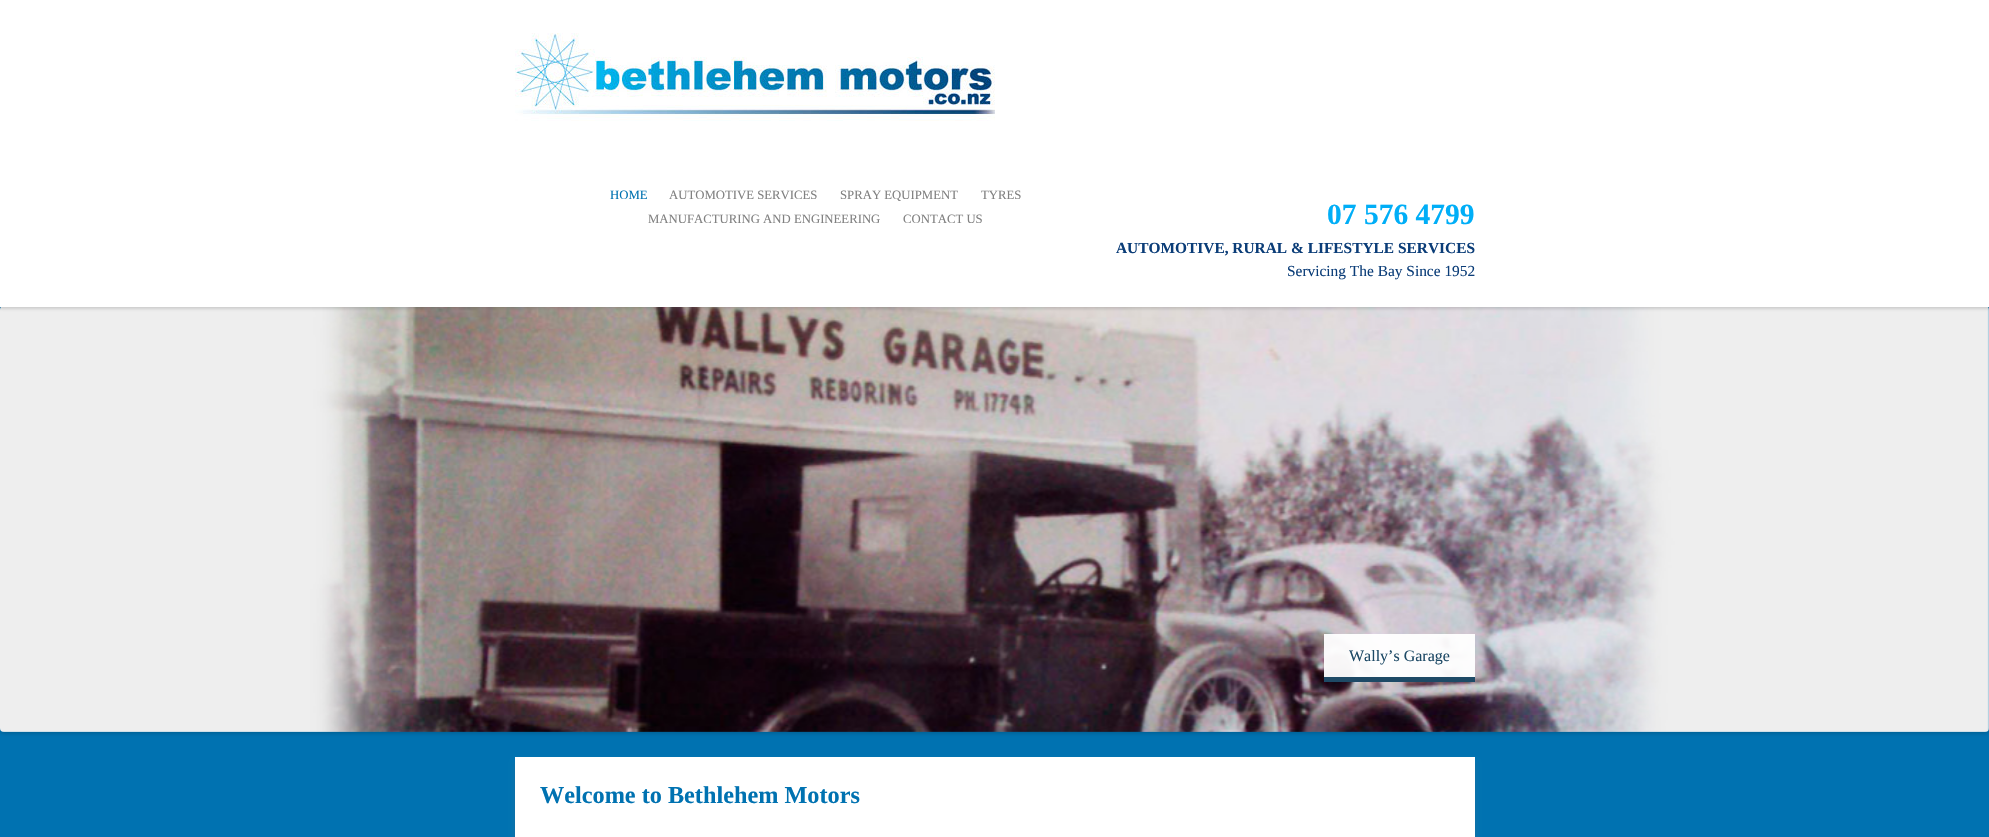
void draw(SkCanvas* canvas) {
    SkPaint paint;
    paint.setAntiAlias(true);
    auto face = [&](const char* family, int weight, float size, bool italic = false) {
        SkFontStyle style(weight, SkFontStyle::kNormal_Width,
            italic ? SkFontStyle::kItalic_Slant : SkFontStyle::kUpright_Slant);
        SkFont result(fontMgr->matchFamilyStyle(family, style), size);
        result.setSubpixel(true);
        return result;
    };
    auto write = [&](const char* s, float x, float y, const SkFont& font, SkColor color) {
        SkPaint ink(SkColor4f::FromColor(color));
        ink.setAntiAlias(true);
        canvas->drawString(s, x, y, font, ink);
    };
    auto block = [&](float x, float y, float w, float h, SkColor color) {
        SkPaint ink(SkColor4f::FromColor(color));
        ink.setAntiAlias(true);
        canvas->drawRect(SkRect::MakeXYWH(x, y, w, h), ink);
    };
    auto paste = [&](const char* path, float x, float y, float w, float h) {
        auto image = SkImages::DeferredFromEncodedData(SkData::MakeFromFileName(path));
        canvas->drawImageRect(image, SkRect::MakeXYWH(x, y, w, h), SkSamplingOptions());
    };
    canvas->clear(SkColorSetRGB(0, 114, 177));
    canvas->save();
    canvas->clipPath(SkPathBuilder(SkPathFillType::kEvenOdd).moveTo(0, 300).lineTo(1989, 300).lineTo(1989, 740).lineTo(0, 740).close().moveTo(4, 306).lineTo(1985, 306).cubicTo(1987, 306, 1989, 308, 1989, 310).lineTo(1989, 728).cubicTo(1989, 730, 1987, 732, 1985, 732).lineTo(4, 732).cubicTo(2, 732, 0, 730, 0, 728).lineTo(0, 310).cubicTo(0, 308, 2, 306, 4, 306).close().detach(), true);
    paint.setColor(SkColorSetARGB(51, 0, 0, 0));
    paint.setMaskFilter(SkMaskFilter::MakeBlur(kNormal_SkBlurStyle, 2));
    canvas->drawRoundRect(SkRect::MakeXYWH(0, 307, 1989, 426), 4, 4, paint);
    paint.setMaskFilter(nullptr);
    canvas->restore();
    paste("pic2.png", 0, 307, 1989, 425);
    paint.setColor(SkColorSetARGB(64, 100, 100, 100));
    paint.setMaskFilter(SkMaskFilter::MakeBlur(kNormal_SkBlurStyle, 1.5f));
    canvas->drawRect(SkRect::MakeXYWH(0, 2, 1989, 307), paint);
    paint.setMaskFilter(nullptr);
    block(0, 0, 1989, 307, SK_ColorWHITE);
    auto kFont1 = face("Liberation Serif", 400, 12.75f);
    write("HOME", 610, 199, kFont1, SkColorSetRGB(0, 114, 177));
    write("AUTOMOTIVE SERVICES", 669, 199, kFont1, SkColorSetRGB(129, 129, 129));
    write("SPRAY EQUIPMENT", 840, 199, kFont1, SkColorSetRGB(129, 129, 129));
    write("TYRES", 981, 199, kFont1, SkColorSetRGB(129, 129, 129));
    write("MANUFACTURING AND ENGINEERING", 648, 223, kFont1, SkColorSetRGB(129, 129, 129));
    write("CONTACT US", 903, 223, kFont1, SkColorSetRGB(129, 129, 129));
    paste("pic1.png", 515, 33, 480, 88);
    auto kFont2 = face("Liberation Serif", 700, 29.5f);
    write("07 576 4799", 1327, 224, kFont2, SkColorSetRGB(0, 174, 247));
    auto kFont3 = face("Liberation Serif", 700, 15.4f);
    write("AUTOMOTIVE, RURAL & LIFESTYLE SERVICES", 1116, 253, kFont3, SkColorSetRGB(11, 61, 120));
    auto kFont4 = face("Liberation Serif", 400, 15.4f);
    write("Servicing The Bay Since 1952", 1287, 276, kFont4, SkColorSetRGB(11, 61, 120));
    block(1324, 634, 151, 43, SkColorSetARGB(242, 255, 255, 255));
    block(1324, 677, 151, 5, SkColorSetRGB(30, 74, 102));
    auto kFont5 = face("Liberation Serif", 400, 16);
    write("Wally’s Garage", 1349, 661, kFont5, SkColorSetRGB(30, 74, 102));
    paint.setMaskFilter(SkMaskFilter::MakeBlur(kNormal_SkBlurStyle, 2.5f));
    canvas->drawRect(SkRect::MakeXYWH(515, 762, 960, 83), paint);
    paint.setMaskFilter(nullptr);
    block(515, 757, 960, 80, SK_ColorWHITE);
    auto kFont6 = face("Liberation Serif", 700, 24.25f);
    write("Welcome to Bethlehem Motors", 540, 803, kFont6, SkColorSetRGB(0, 114, 177));
}
